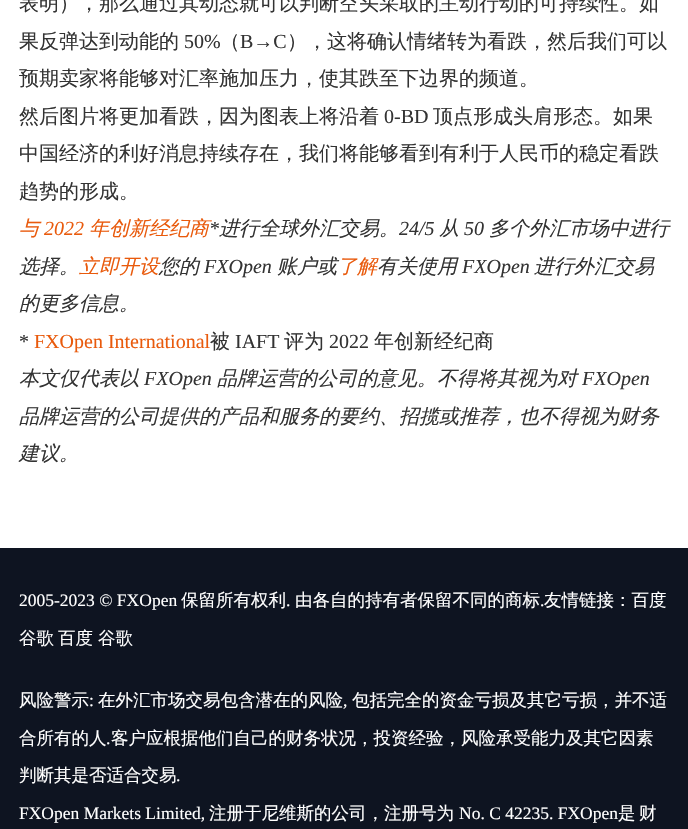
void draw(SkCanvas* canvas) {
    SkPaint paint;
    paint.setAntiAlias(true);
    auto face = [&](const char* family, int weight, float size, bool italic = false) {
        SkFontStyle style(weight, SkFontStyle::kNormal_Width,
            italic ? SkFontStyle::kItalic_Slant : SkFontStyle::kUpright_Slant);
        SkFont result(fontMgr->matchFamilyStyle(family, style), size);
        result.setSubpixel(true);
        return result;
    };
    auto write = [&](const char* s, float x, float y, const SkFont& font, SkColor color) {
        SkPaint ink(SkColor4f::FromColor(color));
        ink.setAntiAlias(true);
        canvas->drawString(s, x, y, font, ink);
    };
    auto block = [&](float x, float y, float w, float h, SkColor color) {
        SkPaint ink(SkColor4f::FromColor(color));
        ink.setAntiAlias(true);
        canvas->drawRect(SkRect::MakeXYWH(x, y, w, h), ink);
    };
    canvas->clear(SK_ColorWHITE);
    auto kFont1 = face("WenQuanYi Zen Hei", 500, 20);
    write("表明），那么通过其动态就可以判断空头采取的主动行动的可持续性。如", 19, 10, kFont1, SkColorSetRGB(51, 51, 51));
    write("果反弹达到动能的", 19, 48, kFont1, SkColorSetRGB(51, 51, 51));
    auto kFont2 = face("Liberation Serif", 400, 20);
    write("50%", 184, 48, kFont2, SkColorSetRGB(51, 51, 51));
    write("（", 220, 48, kFont1, SkColorSetRGB(51, 51, 51));
    write("B→C", 240, 48, kFont2, SkColorSetRGB(51, 51, 51));
    write("），这将确认情绪转为看跌，然后我们可以", 287, 48, kFont1, SkColorSetRGB(51, 51, 51));
    write("预期卖家将能够对汇率施加压力，使其跌至下边界的频道。", 19, 85, kFont1, SkColorSetRGB(51, 51, 51));
    write("然后图片将更加看跌，因为图表上将沿着", 19, 123, kFont1, SkColorSetRGB(51, 51, 51));
    write("0-BD", 384, 123, kFont2, SkColorSetRGB(51, 51, 51));
    write("顶点形成头肩形态。如果", 433, 123, kFont1, SkColorSetRGB(51, 51, 51));
    write("中国经济的利好消息持续存在，我们将能够看到有利于人民币的稳定看跌", 19, 160, kFont1, SkColorSetRGB(51, 51, 51));
    write("趋势的形成。", 19, 198, kFont1, SkColorSetRGB(51, 51, 51));
    auto kFont3 = face("WenQuanYi Zen Hei", 500, 20, true);
    write("与", 19, 235, kFont3, SkColorSetRGB(233, 90, 12));
    auto kFont4 = face("Liberation Serif", 400, 20, true);
    write("2022", 44, 235, kFont4, SkColorSetRGB(233, 90, 12));
    write("年创新经纪商", 89, 235, kFont3, SkColorSetRGB(233, 90, 12));
    write("*", 209, 235, kFont4, SkColorSetRGB(51, 51, 51));
    write("进行全球外汇交易。", 219, 235, kFont3, SkColorSetRGB(51, 51, 51));
    write("24/5", 399, 235, kFont4, SkColorSetRGB(51, 51, 51));
    write("从", 439, 235, kFont3, SkColorSetRGB(51, 51, 51));
    write("50", 464, 235, kFont4, SkColorSetRGB(51, 51, 51));
    write("多个外汇市场中进行", 489, 235, kFont3, SkColorSetRGB(51, 51, 51));
    write("选择。", 19, 273, kFont3, SkColorSetRGB(51, 51, 51));
    write("立即开设", 79, 273, kFont3, SkColorSetRGB(233, 90, 12));
    write("您的", 159, 273, kFont3, SkColorSetRGB(51, 51, 51));
    write("FXOpen", 204, 273, kFont4, SkColorSetRGB(51, 51, 51));
    write("账户或", 277, 273, kFont3, SkColorSetRGB(51, 51, 51));
    write("了解", 337, 273, kFont3, SkColorSetRGB(233, 90, 12));
    write("有关使用", 377, 273, kFont3, SkColorSetRGB(51, 51, 51));
    write("FXOpen", 462, 273, kFont4, SkColorSetRGB(51, 51, 51));
    write("进行外汇交易", 534, 273, kFont3, SkColorSetRGB(51, 51, 51));
    write("的更多信息。", 19, 310, kFont3, SkColorSetRGB(51, 51, 51));
    write("*", 19, 348, kFont2, SkColorSetRGB(51, 51, 51));
    write("FXOpen International", 34, 348, kFont2, SkColorSetRGB(233, 90, 12));
    write("被", 210, 348, kFont1, SkColorSetRGB(51, 51, 51));
    write("IAFT", 235, 348, kFont2, SkColorSetRGB(51, 51, 51));
    write("评为", 284, 348, kFont1, SkColorSetRGB(51, 51, 51));
    write("2022", 329, 348, kFont2, SkColorSetRGB(51, 51, 51));
    write("年创新经纪商", 374, 348, kFont1, SkColorSetRGB(51, 51, 51));
    write("本文仅代表以", 19, 385, kFont3, SkColorSetRGB(51, 51, 51));
    write("FXOpen", 144, 385, kFont4, SkColorSetRGB(51, 51, 51));
    write("品牌运营的公司的意见。不得将其视为对", 217, 385, kFont3, SkColorSetRGB(51, 51, 51));
    write("FXOpen", 582, 385, kFont4, SkColorSetRGB(51, 51, 51));
    write("品牌运营的公司提供的产品和服务的要约、招揽或推荐，也不得视为财务", 19, 423, kFont3, SkColorSetRGB(51, 51, 51));
    write("建议。", 19, 460, kFont3, SkColorSetRGB(51, 51, 51));
    block(0, 548, 688, 281, SkColorSetRGB(14, 20, 33));
    auto kFont5 = face("Liberation Serif", 400, 17.5f);
    write("2005-2023 © FXOpen", 19, 606, kFont5, SK_ColorWHITE);
    auto kFont6 = face("WenQuanYi Zen Hei", 500, 17.5f);
    write("保留所有权利", 181, 606, kFont6, SK_ColorWHITE);
    write(".", 286, 606, kFont5, SK_ColorWHITE);
    write("由各自的持有者保留不同的商标", 295, 606, kFont6, SK_ColorWHITE);
    write(".", 540, 606, kFont5, SK_ColorWHITE);
    write("友情链接：百度", 544, 606, kFont6, SK_ColorWHITE);
    write("谷歌", 19, 644, kFont6, SK_ColorWHITE);
    write("百度", 58, 644, kFont6, SK_ColorWHITE);
    write("谷歌", 98, 644, kFont6, SK_ColorWHITE);
    write("风险警示", 19, 706, kFont6, SK_ColorWHITE);
    write(":", 89, 706, kFont5, SK_ColorWHITE);
    write("在外汇市场交易包含潜在的风险", 98, 706, kFont6, SK_ColorWHITE);
    write(",", 343, 706, kFont5, SK_ColorWHITE);
    write("包括完全的资金亏损及其它亏损，并不适", 352, 706, kFont6, SK_ColorWHITE);
    write("合所有的人", 19, 744, kFont6, SK_ColorWHITE);
    write(".", 106, 744, kFont5, SK_ColorWHITE);
    write("客户应根据他们自己的财务状况，投资经验，风险承受能力及其它因素", 111, 744, kFont6, SK_ColorWHITE);
    write("判断其是否适合交易", 19, 781, kFont6, SK_ColorWHITE);
    write(".", 176, 781, kFont5, SK_ColorWHITE);
    write("FXOpen Markets Limited,", 19, 819, kFont5, SK_ColorWHITE);
    write("注册于尼维斯的公司，注册号为", 209, 819, kFont6, SK_ColorWHITE);
    write("No. C 42235. FXOpen", 459, 819, kFont5, SK_ColorWHITE);
    write("是", 618, 819, kFont6, SK_ColorWHITE);
    write("财", 639, 819, kFont6, SK_ColorWHITE);
}
